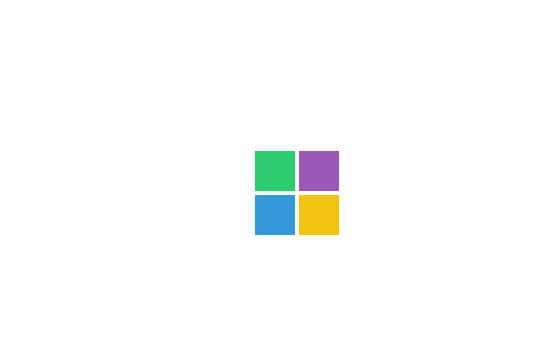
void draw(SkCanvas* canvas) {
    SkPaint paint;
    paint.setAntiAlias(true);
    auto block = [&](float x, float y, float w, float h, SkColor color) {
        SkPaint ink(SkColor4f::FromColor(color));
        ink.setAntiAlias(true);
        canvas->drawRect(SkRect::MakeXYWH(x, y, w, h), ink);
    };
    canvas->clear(SkColorSetRGB(254, 254, 254));
    block(255, 151, 40, 40, SkColorSetRGB(46, 204, 113));
    block(299, 151, 40, 40, SkColorSetRGB(155, 89, 182));
    block(255, 195, 40, 40, SkColorSetRGB(52, 152, 219));
    block(299, 195, 40, 40, SkColorSetRGB(241, 196, 15));
}
